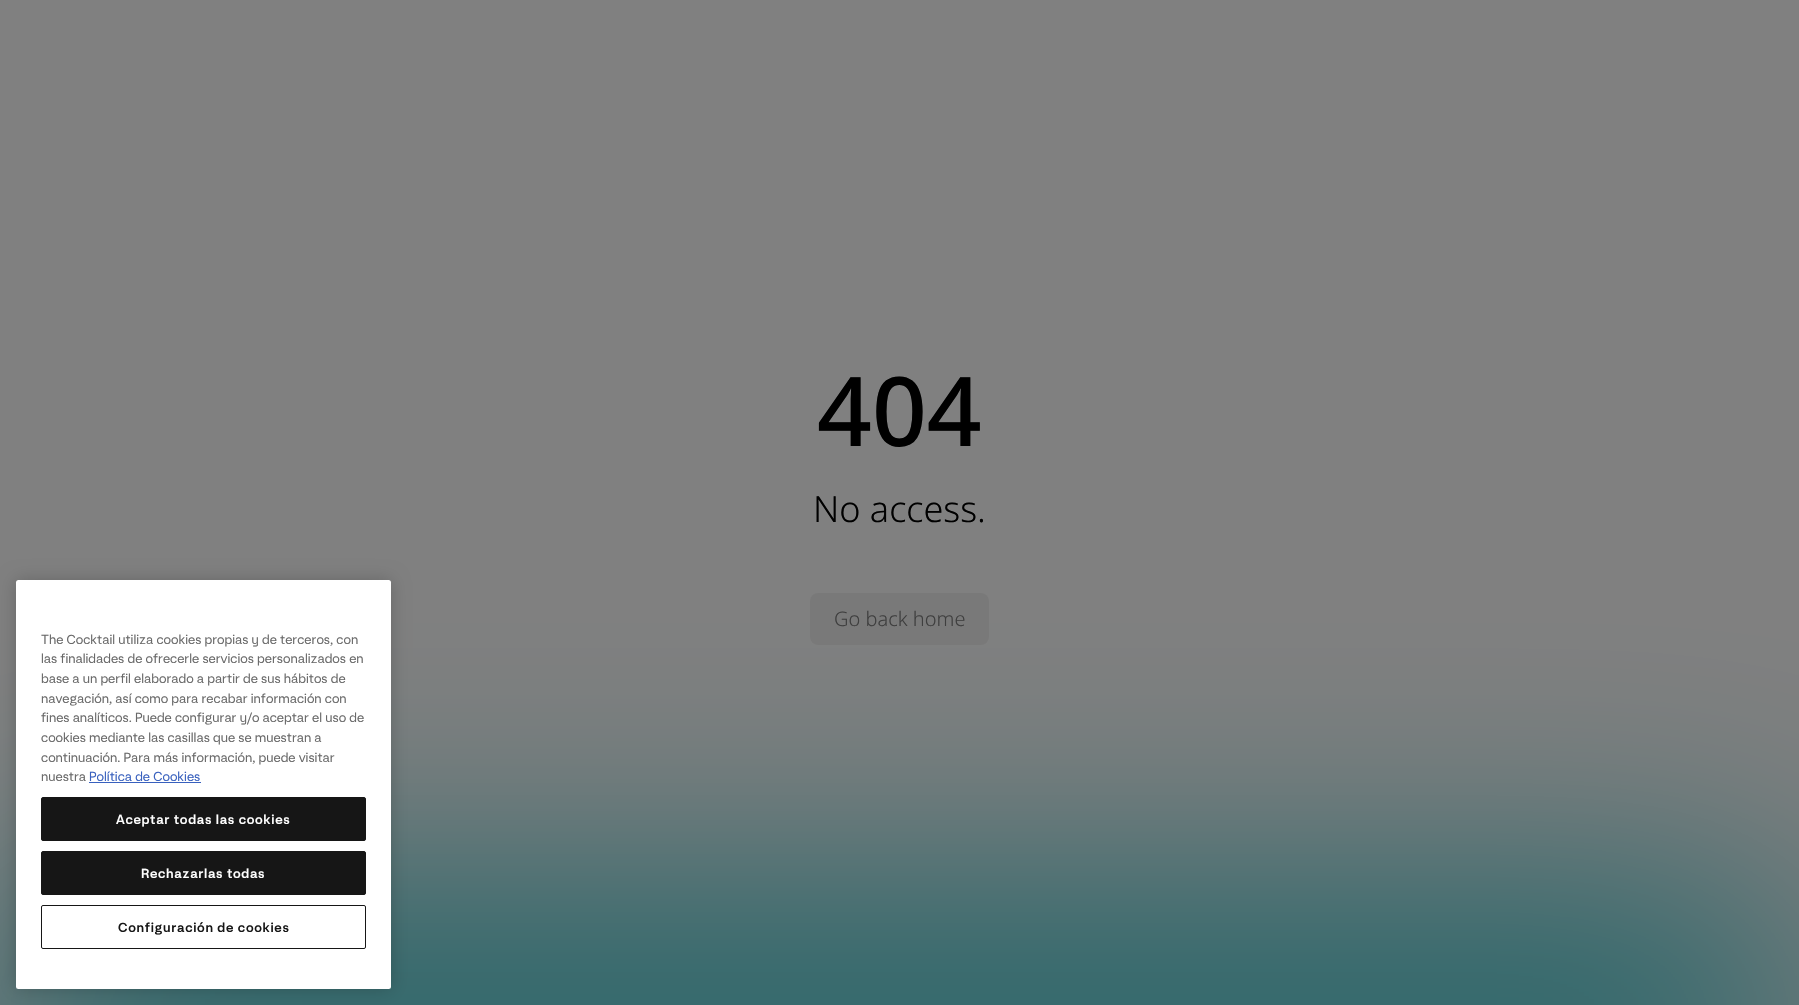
void draw(SkCanvas* canvas) {
    SkPaint paint;
    paint.setAntiAlias(true);
    auto face = [&](const char* family, int weight, float size, bool italic = false) {
        SkFontStyle style(weight, SkFontStyle::kNormal_Width,
            italic ? SkFontStyle::kItalic_Slant : SkFontStyle::kUpright_Slant);
        SkFont result(fontMgr->matchFamilyStyle(family, style), size);
        result.setSubpixel(true);
        return result;
    };
    auto write = [&](const char* s, float x, float y, const SkFont& font, SkColor color) {
        SkPaint ink(SkColor4f::FromColor(color));
        ink.setAntiAlias(true);
        canvas->drawString(s, x, y, font, ink);
    };
    auto writeSpaced = [&](const char* s, float x, float y, const SkFont& font, const SkPaint& ink, float letter, float word) {
        std::vector<SkGlyphID> glyphs(font.countText(s, strlen(s), SkTextEncoding::kUTF8));
        std::vector<float> xs(glyphs.size());
        font.textToGlyphs(s, strlen(s), SkTextEncoding::kUTF8, glyphs);
        font.getXPos(glyphs, xs, x);
        float extra = 0;
        for (size_t i = 0; i < glyphs.size(); i++) {
            xs[i] += extra;
            extra += letter + word * (glyphs[i] == font.unicharToGlyph(' '));
        }
        canvas->drawTextBlob(SkTextBlob::MakeFromPosHGlyphs(glyphs, xs, y, font), 0, 0, ink);
    };
    auto block = [&](float x, float y, float w, float h, SkColor color) {
        SkPaint ink(SkColor4f::FromColor(color));
        ink.setAntiAlias(true);
        canvas->drawRect(SkRect::MakeXYWH(x, y, w, h), ink);
    };
    auto card = [&](float x, float y, float w, float h, float radius, SkColor color) {
        SkPaint ink(SkColor4f::FromColor(color));
        ink.setAntiAlias(true);
        canvas->drawRoundRect(SkRect::MakeXYWH(x, y, w, h), radius, radius, ink);
    };
    canvas->clear(SkColorSetRGB(128, 128, 128));
    paint.setColor(SkColorSetRGB(14, 94, 99));
    paint.setMaskFilter(SkMaskFilter::MakeBlur(kNormal_SkBlurStyle, 201));
    canvas->drawRect(SkRect::MakeXYWH(0, 905, 1799, 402), paint);
    paint.setMaskFilter(nullptr);
    auto kFont1 = face("Noto Sans", 500, 96);
    write("404", 817, 446, kFont1, SK_ColorBLACK);
    auto kFont2 = face("Noto Sans", 300, 36);
    write("No access.", 813, 522, kFont2, SK_ColorBLACK);
    card(810, 593, 179, 52, 8, SkColorSetARGB(77, 128, 128, 128));
    auto kFont3 = face("Noto Sans", 300, 20);
    write("Go back home", 834, 626, kFont3, SkColorSetRGB(11, 11, 11));
    {
        const SkColor colors[] = {SkColorSetARGB(128, 113, 113, 113), SkColorSetARGB(128, 113, 113, 113), SkColorSetARGB(128, 0, 110, 65), SkColorSetARGB(128, 27, 114, 109), SkColorSetARGB(128, 0, 36, 113)};
        const float stops[] = {0, 0.25f, 0.5f, 0.75f, 1};
        const SkPoint ends[] = {{810, 619}, {1526, 619}};
        paint.setShader(SkGradientShader::MakeLinear(ends, colors, stops, 5, SkTileMode::kClamp));
        paint.setAlpha(255);
    }
    canvas->drawRoundRect(SkRect::MakeXYWH(810, 593, 179, 52), 8, 8, paint);
    paint.setShader(nullptr);
    paint.setColor(SkColorSetARGB(51, 0, 0, 0));
    paint.setMaskFilter(SkMaskFilter::MakeBlur(kNormal_SkBlurStyle, 9));
    canvas->drawRoundRect(SkRect::MakeXYWH(16, 580, 375, 409), 2.5f, 2.5f, paint);
    paint.setMaskFilter(nullptr);
    card(16, 580, 375, 409, 2.5f, SK_ColorWHITE);
    auto kFont4 = face("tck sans", 400, 13.1f);
    write("The Cocktail utiliza cookies propias y de terceros, con", 41, 644, kFont4, SkColorSetRGB(105, 105, 105));
    write("las finalidades de ofrecerle servicios personalizados en", 41, 663, kFont4, SkColorSetRGB(105, 105, 105));
    write("base a un perfil elaborado a partir de sus hábitos de", 41, 683, kFont4, SkColorSetRGB(105, 105, 105));
    write("navegación, así como para recabar información con", 41, 703, kFont4, SkColorSetRGB(105, 105, 105));
    write("fines analíticos. Puede configurar y/o aceptar el uso de", 41, 722, kFont4, SkColorSetRGB(105, 105, 105));
    write("cookies mediante las casillas que se muestran a", 41, 742, kFont4, SkColorSetRGB(105, 105, 105));
    write("continuación. Para más información, puede visitar", 41, 762, kFont4, SkColorSetRGB(105, 105, 105));
    write("nuestra", 41, 781, kFont4, SkColorSetRGB(105, 105, 105));
    write("Política de Cookies", 89, 781, kFont4, SkColorSetRGB(56, 96, 190));
    block(89, 782, 112, 1, SkColorSetRGB(56, 96, 190));
    paint.setColor(SkColorSetRGB(22, 22, 22));
    canvas->drawRoundRect(SkRect::MakeXYWH(41.5f, 797.5f, 324, 43), 1.5f, 1.5f, paint);
    paint.setStyle(SkPaint::kStroke_Style);
    paint.setStrokeWidth(1);
    canvas->drawRoundRect(SkRect::MakeXYWH(41.5f, 797.5f, 324, 43), 1.5f, 1.5f, paint);
    auto kFont5 = face("tck sans", 700, 13.1f);
    paint.setStyle(SkPaint::kFill_Style);
    paint.setColor(SK_ColorWHITE);
    writeSpaced("Aceptar todas las cookies", 116, 824, kFont5, paint, 0.65f, 0);
    paint.setColor(SkColorSetRGB(22, 22, 22));
    canvas->drawRoundRect(SkRect::MakeXYWH(41.5f, 851.5f, 324, 43), 1.5f, 1.5f, paint);
    paint.setStyle(SkPaint::kStroke_Style);
    canvas->drawRoundRect(SkRect::MakeXYWH(41.5f, 851.5f, 324, 43), 1.5f, 1.5f, paint);
    paint.setStyle(SkPaint::kFill_Style);
    paint.setColor(SK_ColorWHITE);
    writeSpaced("Rechazarlas todas", 141, 878, kFont5, paint, 0.65f, 0);
    paint.setStyle(SkPaint::kStroke_Style);
    paint.setColor(SkColorSetRGB(22, 22, 22));
    canvas->drawRoundRect(SkRect::MakeXYWH(41.5f, 905.5f, 324, 43), 1.5f, 1.5f, paint);
    paint.setStyle(SkPaint::kFill_Style);
    writeSpaced("Configuración de cookies", 118, 932, kFont5, paint, 0.65f, 0);
}
